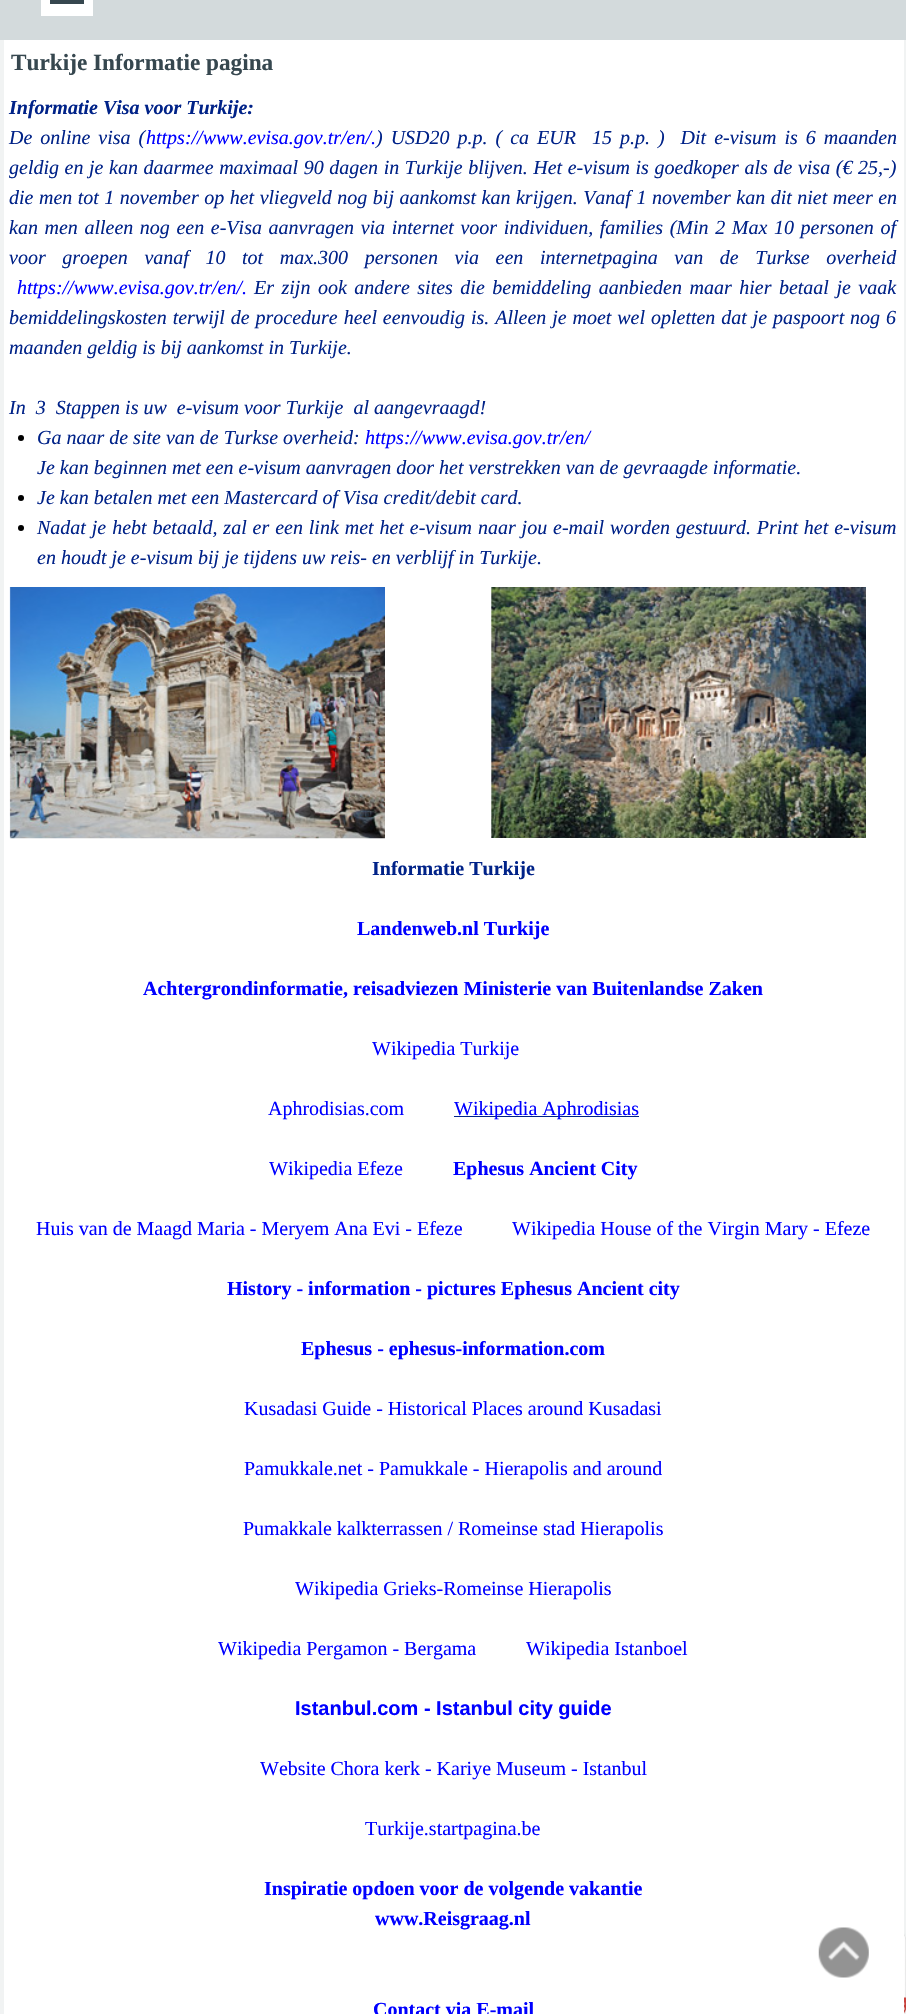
void draw(SkCanvas* canvas) {
    SkPaint paint;
    paint.setAntiAlias(true);
    auto face = [&](const char* family, int weight, float size, bool italic = false) {
        SkFontStyle style(weight, SkFontStyle::kNormal_Width,
            italic ? SkFontStyle::kItalic_Slant : SkFontStyle::kUpright_Slant);
        SkFont result(fontMgr->matchFamilyStyle(family, style), size);
        result.setSubpixel(true);
        return result;
    };
    auto write = [&](const char* s, float x, float y, const SkFont& font, SkColor color) {
        SkPaint ink(SkColor4f::FromColor(color));
        ink.setAntiAlias(true);
        canvas->drawString(s, x, y, font, ink);
    };
    auto writeSpaced = [&](const char* s, float x, float y, const SkFont& font, const SkPaint& ink, float letter, float word) {
        std::vector<SkGlyphID> glyphs(font.countText(s, strlen(s), SkTextEncoding::kUTF8));
        std::vector<float> xs(glyphs.size());
        font.textToGlyphs(s, strlen(s), SkTextEncoding::kUTF8, glyphs);
        font.getXPos(glyphs, xs, x);
        float extra = 0;
        for (size_t i = 0; i < glyphs.size(); i++) {
            xs[i] += extra;
            extra += letter + word * (glyphs[i] == font.unicharToGlyph(' '));
        }
        canvas->drawTextBlob(SkTextBlob::MakeFromPosHGlyphs(glyphs, xs, y, font), 0, 0, ink);
    };
    auto block = [&](float x, float y, float w, float h, SkColor color) {
        SkPaint ink(SkColor4f::FromColor(color));
        ink.setAntiAlias(true);
        canvas->drawRect(SkRect::MakeXYWH(x, y, w, h), ink);
    };
    auto paste = [&](const char* path, float x, float y, float w, float h) {
        auto image = SkImages::DeferredFromEncodedData(SkData::MakeFromFileName(path));
        canvas->drawImageRect(image, SkRect::MakeXYWH(x, y, w, h), SkSamplingOptions());
    };
    canvas->clear(SkColorSetRGB(241, 243, 243));
    block(0, 0, 906, 40, SkColorSetRGB(211, 218, 220));
    block(41, 0, 52, 16, SK_ColorWHITE);
    block(50, 0, 34, 4, SkColorSetRGB(54, 71, 79));
    block(4, 40, 900, 1974, SK_ColorWHITE);
    auto kFont1 = face("Liberation Serif", 700, 23.25f);
    write("Turkije Informatie pagina", 11, 70, kFont1, SkColorSetRGB(54, 71, 79));
    auto kFont2 = face("Liberation Serif", 700, 20, true);
    write("Informatie Visa voor Turkije:", 9, 114, kFont2, SkColorSetRGB(0, 34, 136));
    auto kFont3 = face("Liberation Serif", 400, 20, true);
    paint.setColor(SkColorSetRGB(0, 34, 136));
    writeSpaced("De online visa (", 9, 144, kFont3, paint, 0, 3);
    write("https://www.evisa.gov.tr/en/.", 146, 144, kFont3, SkColorSetRGB(0, 0, 255));
    writeSpaced(") USD20 p.p. ( ca EUR  15 p.p. )  Dit e-visum is 6 maanden", 376, 144, kFont3, paint, 0, 3);
    writeSpaced("geldig en je kan daarmee maximaal 90 dagen in Turkije blijven. Het e-visum is goedkoper als de visa (€ 25,-)", 9, 174, kFont3, paint, 0, 0.6f);
    writeSpaced("die men tot 1 november op het vliegveld nog bij aankomst kan krijgen. Vanaf 1 november kan dit niet meer en", 9, 204, kFont3, paint, 0, 0.5f);
    writeSpaced("kan men alleen nog een e-Visa aanvragen via internet voor individuen, families (Min 2 Max 10 personen of", 9, 234, kFont3, paint, 0, 1.6f);
    writeSpaced("voor groepen vanaf 10 tot max.300 personen via een internetpagina van de Turkse overheid", 9, 264, kFont3, paint, 0, 11.6f);
    write("https://www.evisa.gov.tr/en/.", 17, 294, kFont3, SkColorSetRGB(0, 0, 255));
    writeSpaced("Er zijn ook andere sites die bemiddeling aanbieden maar hier betaal je vaak", 254, 294, kFont3, paint, 0, 2.5f);
    writeSpaced("bemiddelingskosten terwijl de procedure heel eenvoudig is. Alleen je moet wel opletten dat je paspoort nog 6", 9, 324, kFont3, paint, 0, 0.9f);
    write("maanden geldig is bij aankomst in Turkije.", 9, 354, kFont3, SkColorSetRGB(0, 34, 136));
    write("In  3  Stappen is uw  e-visum voor Turkije  al aangevraagd!", 9, 414, kFont3, SkColorSetRGB(0, 34, 136));
    paint.setColor(SK_ColorBLACK);
    canvas->drawCircle(21, 438, 3, paint);
    write("Ga naar de site van de Turkse overheid:", 37, 444, kFont3, SkColorSetRGB(0, 34, 136));
    write("https://www.evisa.gov.tr/en/", 365, 444, kFont3, SkColorSetRGB(0, 0, 255));
    write("Je kan beginnen met een e-visum aanvragen door het verstrekken van de gevraagde informatie.", 37, 474, kFont3, SkColorSetRGB(0, 34, 136));
    canvas->drawCircle(21, 498, 3, paint);
    write("Je kan betalen met een Mastercard of Visa credit/debit card.", 37, 504, kFont3, SkColorSetRGB(0, 34, 136));
    canvas->drawCircle(21, 528, 3, paint);
    paint.setColor(SkColorSetRGB(0, 34, 136));
    writeSpaced("Nadat je hebt betaald, zal er een link met het e-visum naar jou e-mail worden gestuurd. Print het e-visum", 37, 534, kFont3, paint, 0, 0.9f);
    write("en houdt je e-visum bij je tijdens uw reis- en verblijf in Turkije.", 37, 564, kFont3, SkColorSetRGB(0, 34, 136));
    paste("pic1.png", 9, 587, 376, 252);
    paste("pic2.png", 491, 587, 375, 251);
    auto kFont4 = face("Liberation Serif", 700, 20);
    write("Informatie Turkije", 372, 875, kFont4, SkColorSetRGB(0, 34, 136));
    write("Landenweb.nl Turkije", 357, 935, kFont4, SkColorSetRGB(0, 0, 255));
    write("Achtergrondinformatie, reisadviezen Ministerie van Buitenlandse Zaken", 143, 995, kFont4, SkColorSetRGB(0, 0, 255));
    auto kFont5 = face("Liberation Serif", 400, 20);
    write("Wikipedia Turkije", 372, 1055, kFont5, SkColorSetRGB(0, 0, 255));
    write("Aphrodisias.com", 268, 1115, kFont5, SkColorSetRGB(0, 0, 255));
    block(454, 1116, 185, 1, SkColorSetRGB(0, 34, 136));
    write("Wikipedia Aphrodisias", 454, 1115, kFont5, SkColorSetRGB(0, 0, 255));
    write("Wikipedia Efeze", 269, 1175, kFont5, SkColorSetRGB(0, 0, 255));
    write("Ephesus Ancient City", 453, 1175, kFont4, SkColorSetRGB(0, 0, 255));
    write("Huis van de Maagd Maria - Meryem Ana Evi - Efeze", 36, 1235, kFont5, SkColorSetRGB(0, 0, 255));
    write("Wikipedia House of the Virgin Mary - Efeze", 512, 1235, kFont5, SkColorSetRGB(0, 0, 255));
    write("History - information - pictures Ephesus Ancient city", 227, 1295, kFont4, SkColorSetRGB(0, 0, 255));
    write("Ephesus - ephesus-information.com", 301, 1355, kFont4, SkColorSetRGB(0, 0, 255));
    write("Kusadasi Guide - Historical Places around Kusadasi", 244, 1415, kFont5, SkColorSetRGB(0, 0, 255));
    write("Pamukkale.net - Pamukkale - Hierapolis and around", 244, 1475, kFont5, SkColorSetRGB(0, 0, 255));
    write("Pumakkale kalkterrassen / Romeinse stad Hierapolis", 243, 1535, kFont5, SkColorSetRGB(0, 0, 255));
    write("Wikipedia Grieks-Romeinse Hierapolis", 295, 1595, kFont5, SkColorSetRGB(0, 0, 255));
    write("Wikipedia Pergamon - Bergama", 218, 1655, kFont5, SkColorSetRGB(0, 0, 255));
    write("Wikipedia Istanboel", 526, 1655, kFont5, SkColorSetRGB(0, 0, 255));
    auto kFont6 = face("Liberation Sans", 700, 20);
    write("Istanbul.com - Istanbul city guide", 295, 1715, kFont6, SkColorSetRGB(0, 0, 255));
    write("Website Chora kerk - Kariye Museum - Istanbul", 260, 1775, kFont5, SkColorSetRGB(0, 0, 255));
    write("Turkije.startpagina.be", 365, 1835, kFont5, SkColorSetRGB(0, 0, 255));
    write("Inspiratie opdoen voor de volgende vakantie", 264, 1895, kFont4, SkColorSetRGB(0, 0, 255));
    write("www.Reisgraag.nl", 375, 1925, kFont4, SkColorSetRGB(0, 0, 255));
    write("Contact via E-mail", 373, 2016, kFont4, SkColorSetRGB(0, 0, 255));
    paste("pic3.png", 818, 1927, 51, 51);
    paste("pic4.png", 904, 1933, 2, 81);
}
